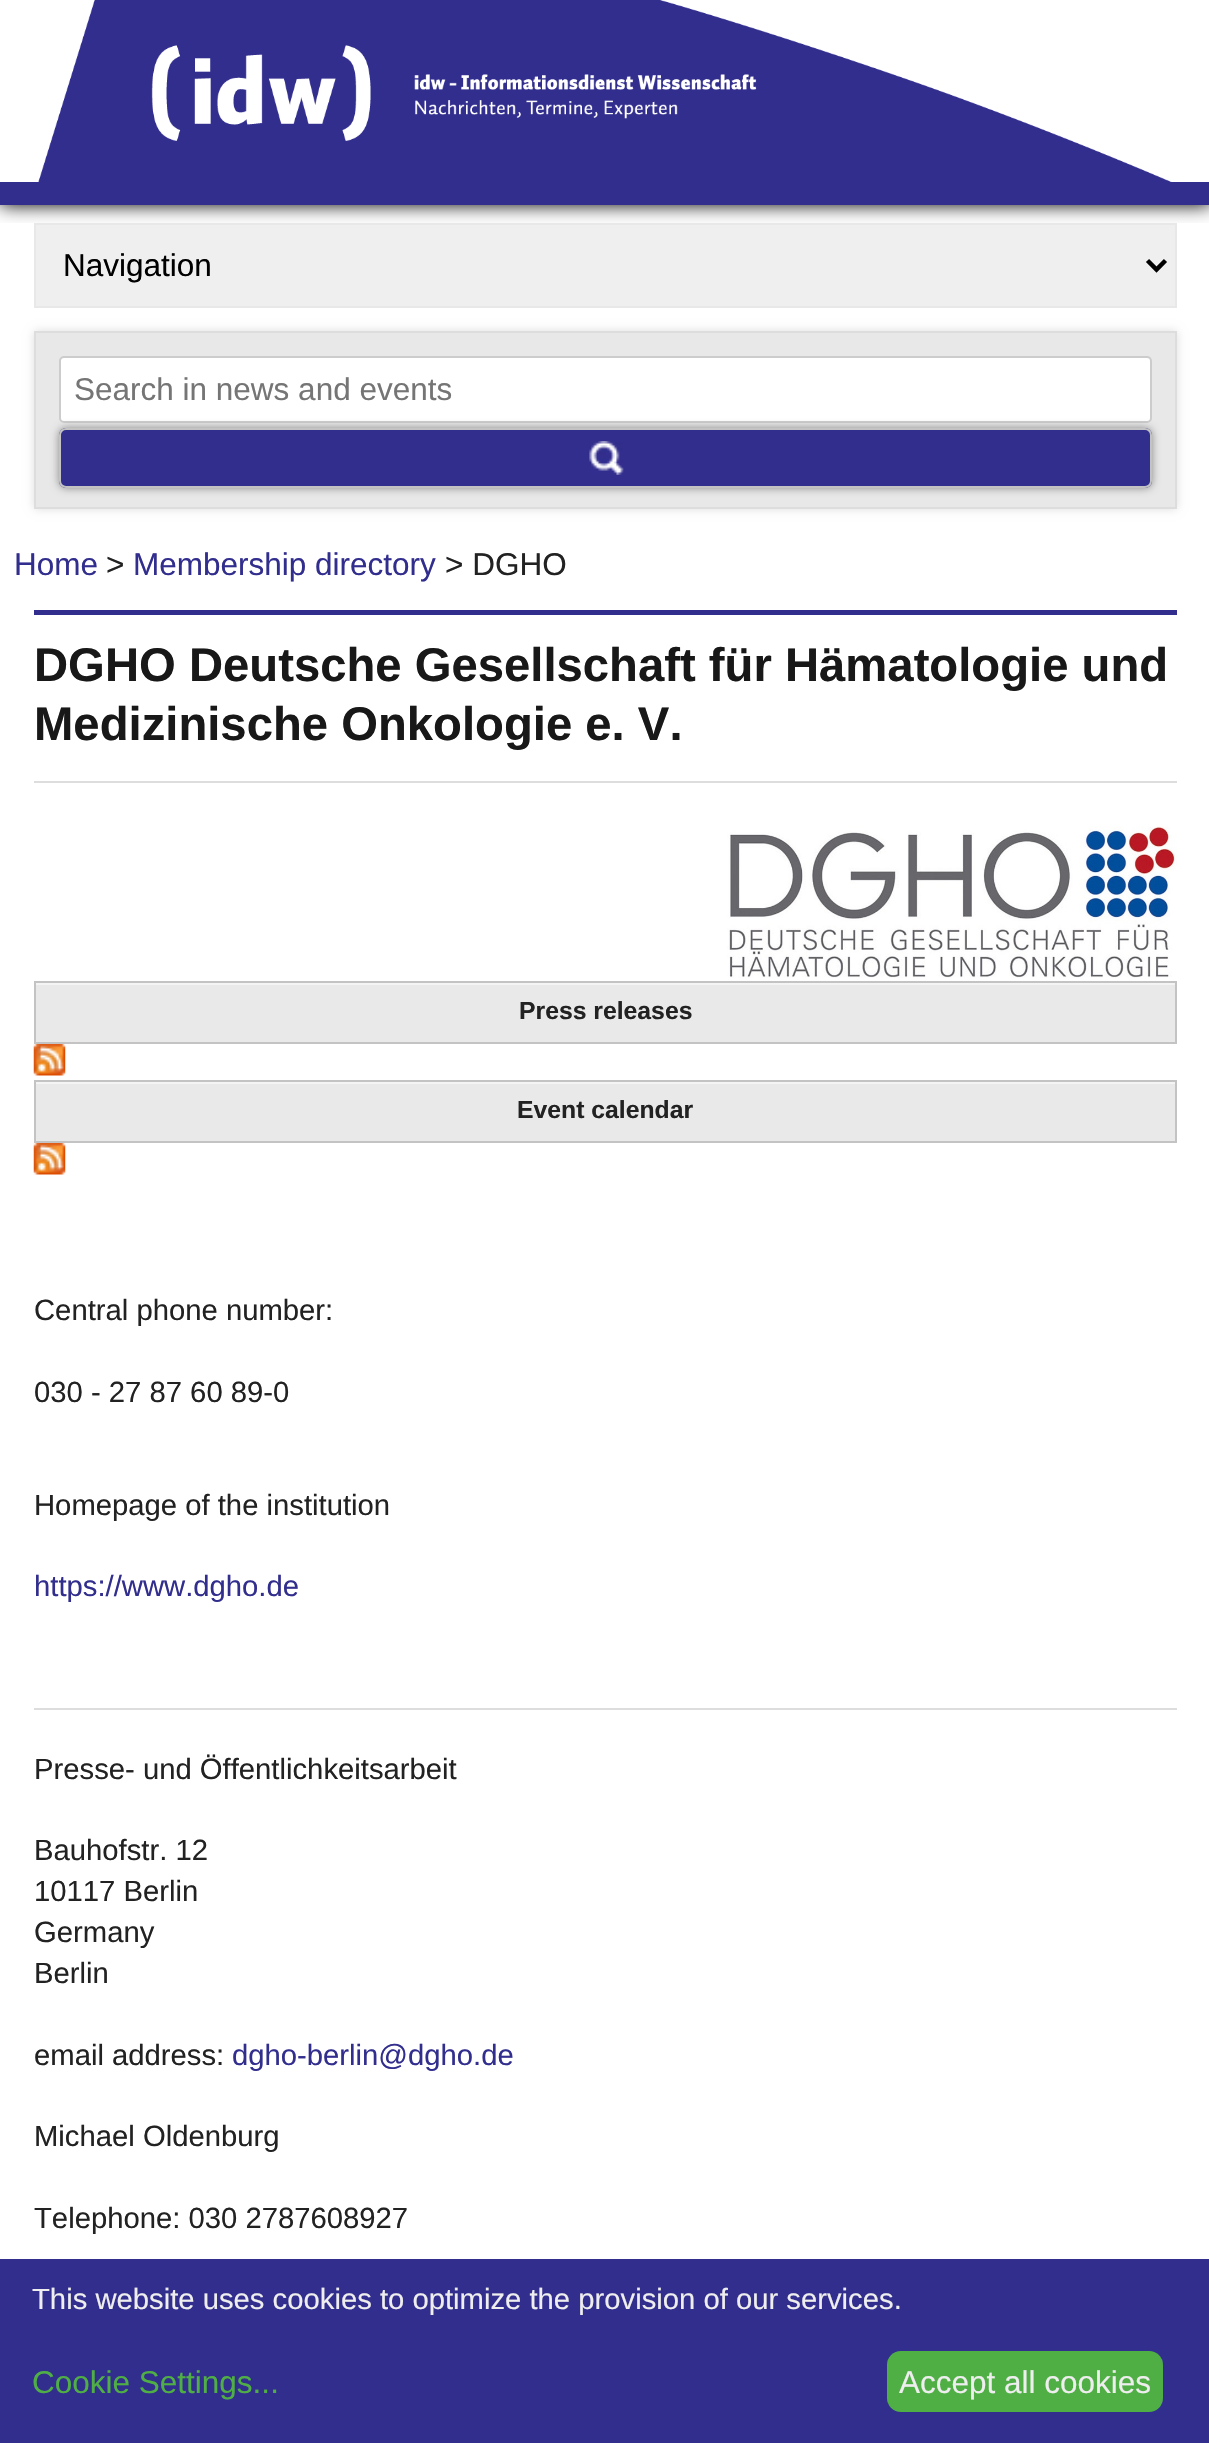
void draw(SkCanvas* canvas) {
    SkPaint paint;
    paint.setAntiAlias(true);
    auto face = [&](const char* family, int weight, float size, bool italic = false) {
        SkFontStyle style(weight, SkFontStyle::kNormal_Width,
            italic ? SkFontStyle::kItalic_Slant : SkFontStyle::kUpright_Slant);
        SkFont result(fontMgr->matchFamilyStyle(family, style), size);
        result.setSubpixel(true);
        return result;
    };
    auto write = [&](const char* s, float x, float y, const SkFont& font, SkColor color) {
        SkPaint ink(SkColor4f::FromColor(color));
        ink.setAntiAlias(true);
        canvas->drawString(s, x, y, font, ink);
    };
    auto block = [&](float x, float y, float w, float h, SkColor color) {
        SkPaint ink(SkColor4f::FromColor(color));
        ink.setAntiAlias(true);
        canvas->drawRect(SkRect::MakeXYWH(x, y, w, h), ink);
    };
    auto card = [&](float x, float y, float w, float h, float radius, SkColor color) {
        SkPaint ink(SkColor4f::FromColor(color));
        ink.setAntiAlias(true);
        canvas->drawRoundRect(SkRect::MakeXYWH(x, y, w, h), radius, radius, ink);
    };
    auto paste = [&](const char* path, float x, float y, float w, float h) {
        auto image = SkImages::DeferredFromEncodedData(SkData::MakeFromFileName(path));
        canvas->drawImageRect(image, SkRect::MakeXYWH(x, y, w, h), SkSamplingOptions());
    };
    canvas->clear(SK_ColorWHITE);
    canvas->save();
    canvas->clipRect(SkRect::MakeXYWH(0, 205, 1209, 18));
    paint.setColor(SK_ColorBLACK);
    paint.setMaskFilter(SkMaskFilter::MakeBlur(kNormal_SkBlurStyle, 9));
    canvas->drawRect(SkRect::MakeXYWH(0, 0, 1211, 205), paint);
    paint.setMaskFilter(nullptr);
    canvas->restore();
    block(0, 182, 1209, 23, SkColorSetRGB(50, 46, 141));
    paste("pic1.png", 38, 0, 1134, 182);
    paint.setColor(SkColorSetRGB(239, 239, 239));
    canvas->drawRect(SkRect::MakeXYWH(35, 224, 1141, 83), paint);
    paint.setStyle(SkPaint::kStroke_Style);
    paint.setStrokeWidth(2);
    paint.setColor(SkColorSetRGB(232, 232, 232));
    canvas->drawRect(SkRect::MakeXYWH(35, 224, 1141, 83), paint);
    paint.setStrokeWidth(4.5f);
    paint.setColor(SK_ColorBLACK);
    canvas->drawPath(SkPathBuilder().moveTo(1147.5f, 260.5f).lineTo(1156.5f, 269.5f).lineTo(1165.5f, 260.5f).detach(), paint);
    auto kFont1 = face("Liberation Sans", 400, 31.5f);
    write("Navigation", 63, 276, kFont1, SK_ColorBLACK);
    paint.setStyle(SkPaint::kFill_Style);
    paint.setColor(SkColorSetRGB(221, 221, 221));
    paint.setMaskFilter(SkMaskFilter::MakeBlur(kNormal_SkBlurStyle, 4.5f));
    canvas->drawRect(SkRect::MakeXYWH(34, 331, 1143, 178), paint);
    paint.setMaskFilter(nullptr);
    paint.setColor(SkColorSetRGB(232, 232, 232));
    canvas->drawRect(SkRect::MakeXYWH(35, 332, 1141, 176), paint);
    paint.setStyle(SkPaint::kStroke_Style);
    paint.setStrokeWidth(2);
    paint.setColor(SkColorSetRGB(221, 221, 221));
    canvas->drawRect(SkRect::MakeXYWH(35, 332, 1141, 176), paint);
    paint.setStyle(SkPaint::kFill_Style);
    paint.setColor(SK_ColorWHITE);
    canvas->drawRoundRect(SkRect::MakeXYWH(60, 357, 1091, 65), 4, 4, paint);
    paint.setStyle(SkPaint::kStroke_Style);
    paint.setColor(SkColorSetRGB(204, 204, 204));
    canvas->drawRoundRect(SkRect::MakeXYWH(60, 357, 1091, 65), 4, 4, paint);
    write("Search in news and events", 74, 400, kFont1, SkColorSetRGB(117, 117, 117));
    paint.setStyle(SkPaint::kFill_Style);
    paint.setColor(SkColorSetRGB(136, 136, 136));
    paint.setMaskFilter(SkMaskFilter::MakeBlur(kNormal_SkBlurStyle, 4.5f));
    canvas->drawRoundRect(SkRect::MakeXYWH(59, 428, 1093, 60), 7, 7, paint);
    paint.setMaskFilter(nullptr);
    card(59, 428, 1093, 60, 7, SkColorSetRGB(50, 46, 141));
    paste("pic2.png", 589, 441, 35, 34);
    paint.setStyle(SkPaint::kStroke_Style);
    paint.setColor(SkColorSetRGB(195, 195, 195));
    canvas->drawRoundRect(SkRect::MakeXYWH(60, 429, 1091, 58), 6, 6, paint);
    write("Home", 14, 575, kFont1, SkColorSetRGB(50, 46, 141));
    write(">", 106, 575, kFont1, SkColorSetRGB(34, 34, 34));
    write("Membership directory", 133, 575, kFont1, SkColorSetRGB(50, 46, 141));
    write("> DGHO", 445, 575, kFont1, SkColorSetRGB(34, 34, 34));
    block(34, 610, 1143, 5, SkColorSetRGB(50, 46, 141));
    auto kFont2 = face("Liberation Sans", 700, 47.25f);
    write("DGHO Deutsche Gesellschaft für Hämatologie und", 34, 681, kFont2, SkColorSetRGB(24, 24, 24));
    write("Medizinische Onkologie e. V.", 34, 740, kFont2, SkColorSetRGB(24, 24, 24));
    block(34, 781, 1143, 2, SkColorSetRGB(221, 221, 221));
    paste("pic3.png", 727, 826, 450, 152);
    block(36, 985, 1139, 57, SkColorSetRGB(233, 233, 233));
    block(36, 983, 1139, 2, SkColorSetRGB(244, 244, 244));
    canvas->drawRect(SkRect::MakeXYWH(35, 982, 1141, 61), paint);
    auto kFont3 = face("Liberation Sans", 700, 24.75f);
    write("Press releases", 519, 1019, kFont3, SkColorSetRGB(34, 34, 34));
    paste("pic4.png", 33, 1044, 33, 32);
    block(36, 1084, 1139, 57, SkColorSetRGB(233, 233, 233));
    block(36, 1082, 1139, 2, SkColorSetRGB(244, 244, 244));
    canvas->drawRect(SkRect::MakeXYWH(35, 1081, 1141, 61), paint);
    write("Event calendar", 517, 1118, kFont3, SkColorSetRGB(34, 34, 34));
    paste("pic5.png", 33, 1143, 33, 32);
    auto kFont4 = face("Liberation Sans", 400, 29.25f);
    write("Central phone number:", 34, 1320, kFont4, SkColorSetRGB(34, 34, 34));
    write("030 - 27 87 60 89-0", 34, 1402, kFont4, SkColorSetRGB(34, 34, 34));
    write("Homepage of the institution", 34, 1515, kFont4, SkColorSetRGB(34, 34, 34));
    write("https://www.dgho.de", 34, 1596, kFont4, SkColorSetRGB(50, 46, 141));
    block(34, 1708, 1143, 2, SkColorSetRGB(221, 221, 221));
    write("Presse- und Öffentlichkeitsarbeit", 34, 1779, kFont4, SkColorSetRGB(34, 34, 34));
    write("Bauhofstr. 12", 34, 1860, kFont4, SkColorSetRGB(34, 34, 34));
    write("10117 Berlin", 34, 1901, kFont4, SkColorSetRGB(34, 34, 34));
    write("Germany", 34, 1942, kFont4, SkColorSetRGB(34, 34, 34));
    write("Berlin", 34, 1983, kFont4, SkColorSetRGB(34, 34, 34));
    write("email address:", 34, 2065, kFont4, SkColorSetRGB(34, 34, 34));
    write("dgho-berlin@dgho.de", 232, 2065, kFont4, SkColorSetRGB(50, 46, 141));
    write("Michael Oldenburg", 34, 2146, kFont4, SkColorSetRGB(34, 34, 34));
    write("Telephone: 030 2787608927", 34, 2228, kFont4, SkColorSetRGB(34, 34, 34));
    block(0, 2259, 1209, 184, SkColorSetRGB(50, 46, 141));
    write("This website uses cookies to optimize the provision of our services.", 32, 2309, kFont4, SkColorSetRGB(238, 238, 238));
    write("Cookie Settings...", 32, 2393, kFont1, SkColorSetRGB(79, 175, 69));
    card(887, 2351, 276, 61, 14, SkColorSetRGB(79, 175, 69));
    write("Accept all cookies", 899, 2393, kFont1, SkColorSetRGB(238, 238, 238));
}
